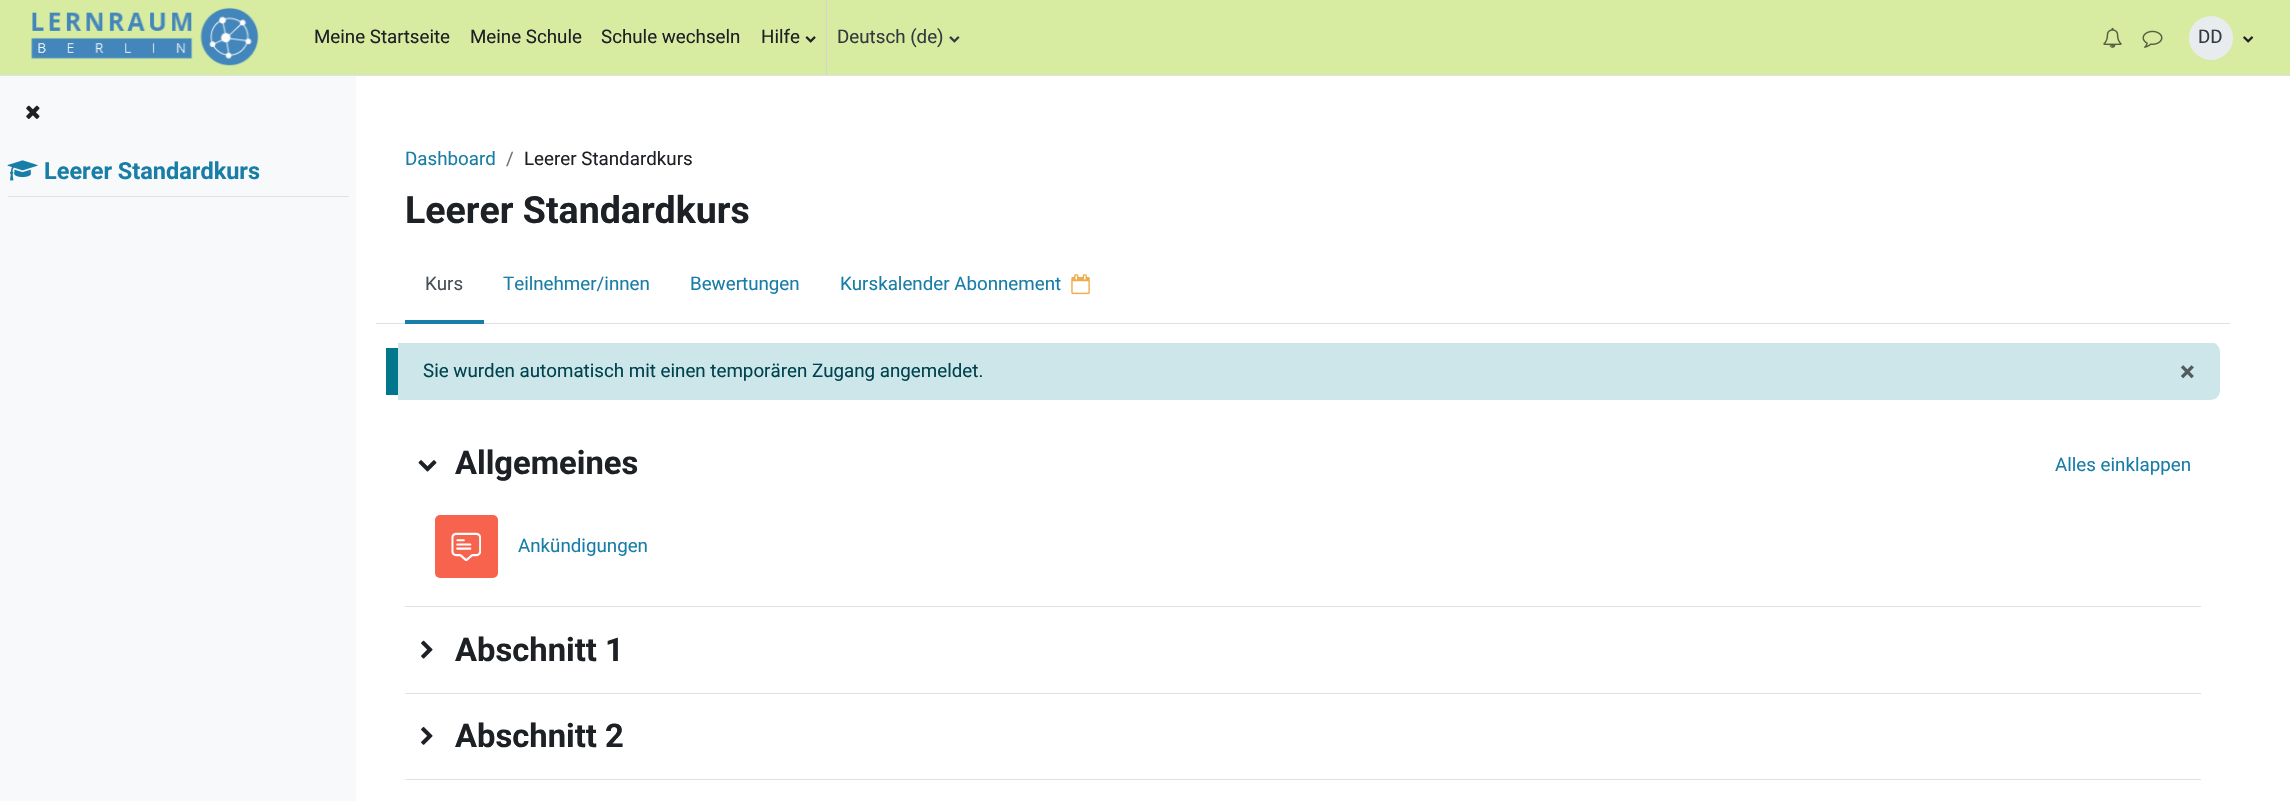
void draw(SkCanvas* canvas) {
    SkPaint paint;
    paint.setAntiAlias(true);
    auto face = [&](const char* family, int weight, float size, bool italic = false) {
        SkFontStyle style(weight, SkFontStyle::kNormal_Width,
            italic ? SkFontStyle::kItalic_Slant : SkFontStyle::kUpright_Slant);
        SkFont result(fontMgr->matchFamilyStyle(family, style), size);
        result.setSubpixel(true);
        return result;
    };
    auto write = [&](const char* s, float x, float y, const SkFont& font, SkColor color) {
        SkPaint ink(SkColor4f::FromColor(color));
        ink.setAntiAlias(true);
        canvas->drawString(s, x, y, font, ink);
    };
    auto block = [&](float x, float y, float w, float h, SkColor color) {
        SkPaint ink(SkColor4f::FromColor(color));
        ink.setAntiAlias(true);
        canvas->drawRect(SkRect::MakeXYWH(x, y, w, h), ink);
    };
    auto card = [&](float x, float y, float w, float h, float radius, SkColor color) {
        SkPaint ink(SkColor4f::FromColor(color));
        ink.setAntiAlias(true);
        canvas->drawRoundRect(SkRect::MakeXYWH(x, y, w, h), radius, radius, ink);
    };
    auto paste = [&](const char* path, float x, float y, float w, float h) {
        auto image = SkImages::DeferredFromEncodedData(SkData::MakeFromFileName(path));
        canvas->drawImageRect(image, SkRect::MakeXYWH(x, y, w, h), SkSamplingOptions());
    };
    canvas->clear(SK_ColorWHITE);
    block(0, 0, 2290, 75, SkColorSetRGB(215, 236, 161));
    block(0, 75, 2290, 1, SkColorSetRGB(222, 226, 230));
    paste("pic1.png", 31, 7, 228, 59);
    auto kFont1 = face("Roboto", 400, 18.75f);
    write("Meine Startseite", 314, 43, kFont1, SkColorSetRGB(29, 33, 37));
    write("Meine Schule", 470, 43, kFont1, SkColorSetRGB(29, 33, 37));
    write("Schule wechseln", 601, 43, kFont1, SkColorSetRGB(29, 33, 37));
    write("Hilfe", 761, 43, kFont1, SkColorSetRGB(29, 33, 37));
    paste("pic2.png", 805, 36, 11, 7);
    block(826, 0, 1, 75, SkColorSetRGB(206, 212, 218));
    write("Deutsch (de)", 837, 43, kFont1, SkColorSetRGB(52, 58, 64));
    paste("pic3.png", 949, 36, 11, 7);
    paste("pic4.png", 2103, 27, 19, 21);
    paste("pic5.png", 2142, 30, 21, 18);
    paint.setColor(SkColorSetRGB(233, 236, 239));
    canvas->drawCircle(2211, 38, 22, paint);
    write("DD", 2198, 43, kFont1, SkColorSetRGB(52, 58, 64));
    paste("pic6.png", 2243, 36, 11, 7);
    block(0, 76, 356, 725, SkColorSetRGB(248, 249, 250));
    paste("pic7.png", 26, 105, 14, 14);
    block(8, 196, 341, 1, SkColorSetRGB(222, 226, 230));
    paste("pic8.png", 7, 160, 31, 21);
    auto kFont2 = face("Roboto", 700, 23.5f);
    write("Leerer Standardkurs", 44, 179, kFont2, SkColorSetRGB(25, 126, 167));
    write("Dashboard", 405, 165, kFont1, SkColorSetRGB(25, 126, 167));
    write("/", 506, 165, kFont1, SkColorSetRGB(106, 115, 123));
    write("Leerer Standardkurs", 524, 165, kFont1, SkColorSetRGB(29, 33, 37));
    auto kFont3 = face("Roboto", 700, 37.5f);
    write("Leerer Standardkurs", 405, 223, kFont3, SkColorSetRGB(29, 33, 37));
    block(376, 323, 1854, 1, SkColorSetRGB(222, 226, 230));
    block(405, 320, 79, 4, SkColorSetRGB(25, 126, 167));
    write("Kurs", 425, 290, kFont1, SkColorSetRGB(73, 80, 87));
    write("Teilnehmer/innen", 503, 290, kFont1, SkColorSetRGB(25, 126, 167));
    write("Bewertungen", 690, 290, kFont1, SkColorSetRGB(25, 126, 167));
    write("Kurskalender Abonnement", 840, 290, kFont1, SkColorSetRGB(25, 126, 167));
    paste("pic9.png", 1071, 274, 19, 21);
    canvas->save();
    canvas->clipRect(SkRect::MakeXYWH(386, 343, 1834, 77));
    paint.setColor(SkColorSetRGB(204, 230, 234));
    canvas->drawPath(SkPathBuilder().moveTo(398, 342).lineTo(2210, 342).cubicTo(2216, 342, 2220, 347, 2220, 352).lineTo(2220, 390).cubicTo(2220, 396, 2216, 400, 2210, 400).lineTo(398, 400).close().detach(), paint);
    canvas->restore();
    block(386, 348, 12, 47, SkColorSetRGB(0, 119, 138));
    write("Sie wurden automatisch mit einen temporären Zugang angemeldet.", 423, 377, kFont1, SkColorSetRGB(0, 67, 78));
    auto kFont4 = face("Roboto", 700, 28);
    write("×", 2180, 381, kFont4, SkColorSetRGB(82, 92, 94));
    block(405, 606, 1796, 1, SkColorSetRGB(222, 226, 230));
    paste("pic10.png", 418, 460, 19, 12);
    auto kFont5 = face("Roboto", 700, 32.75f);
    write("Allgemeines", 455, 474, kFont5, SkColorSetRGB(29, 33, 37));
    write("Alles einklappen", 2055, 471, kFont1, SkColorSetRGB(25, 126, 167));
    card(435, 515, 63, 63, 5, SkColorSetRGB(247, 99, 77));
    paste("pic11.png", 451, 532, 30, 29);
    write("Ankündigungen", 518, 552, kFont1, SkColorSetRGB(25, 126, 167));
    block(405, 693, 1796, 1, SkColorSetRGB(222, 226, 230));
    paste("pic12.png", 421, 640, 12, 19);
    write("Abschnitt 1", 455, 661, kFont5, SkColorSetRGB(29, 33, 37));
    block(405, 779, 1796, 1, SkColorSetRGB(222, 226, 230));
    paste("pic13.png", 421, 726, 12, 19);
    write("Abschnitt 2", 455, 747, kFont5, SkColorSetRGB(29, 33, 37));
}
